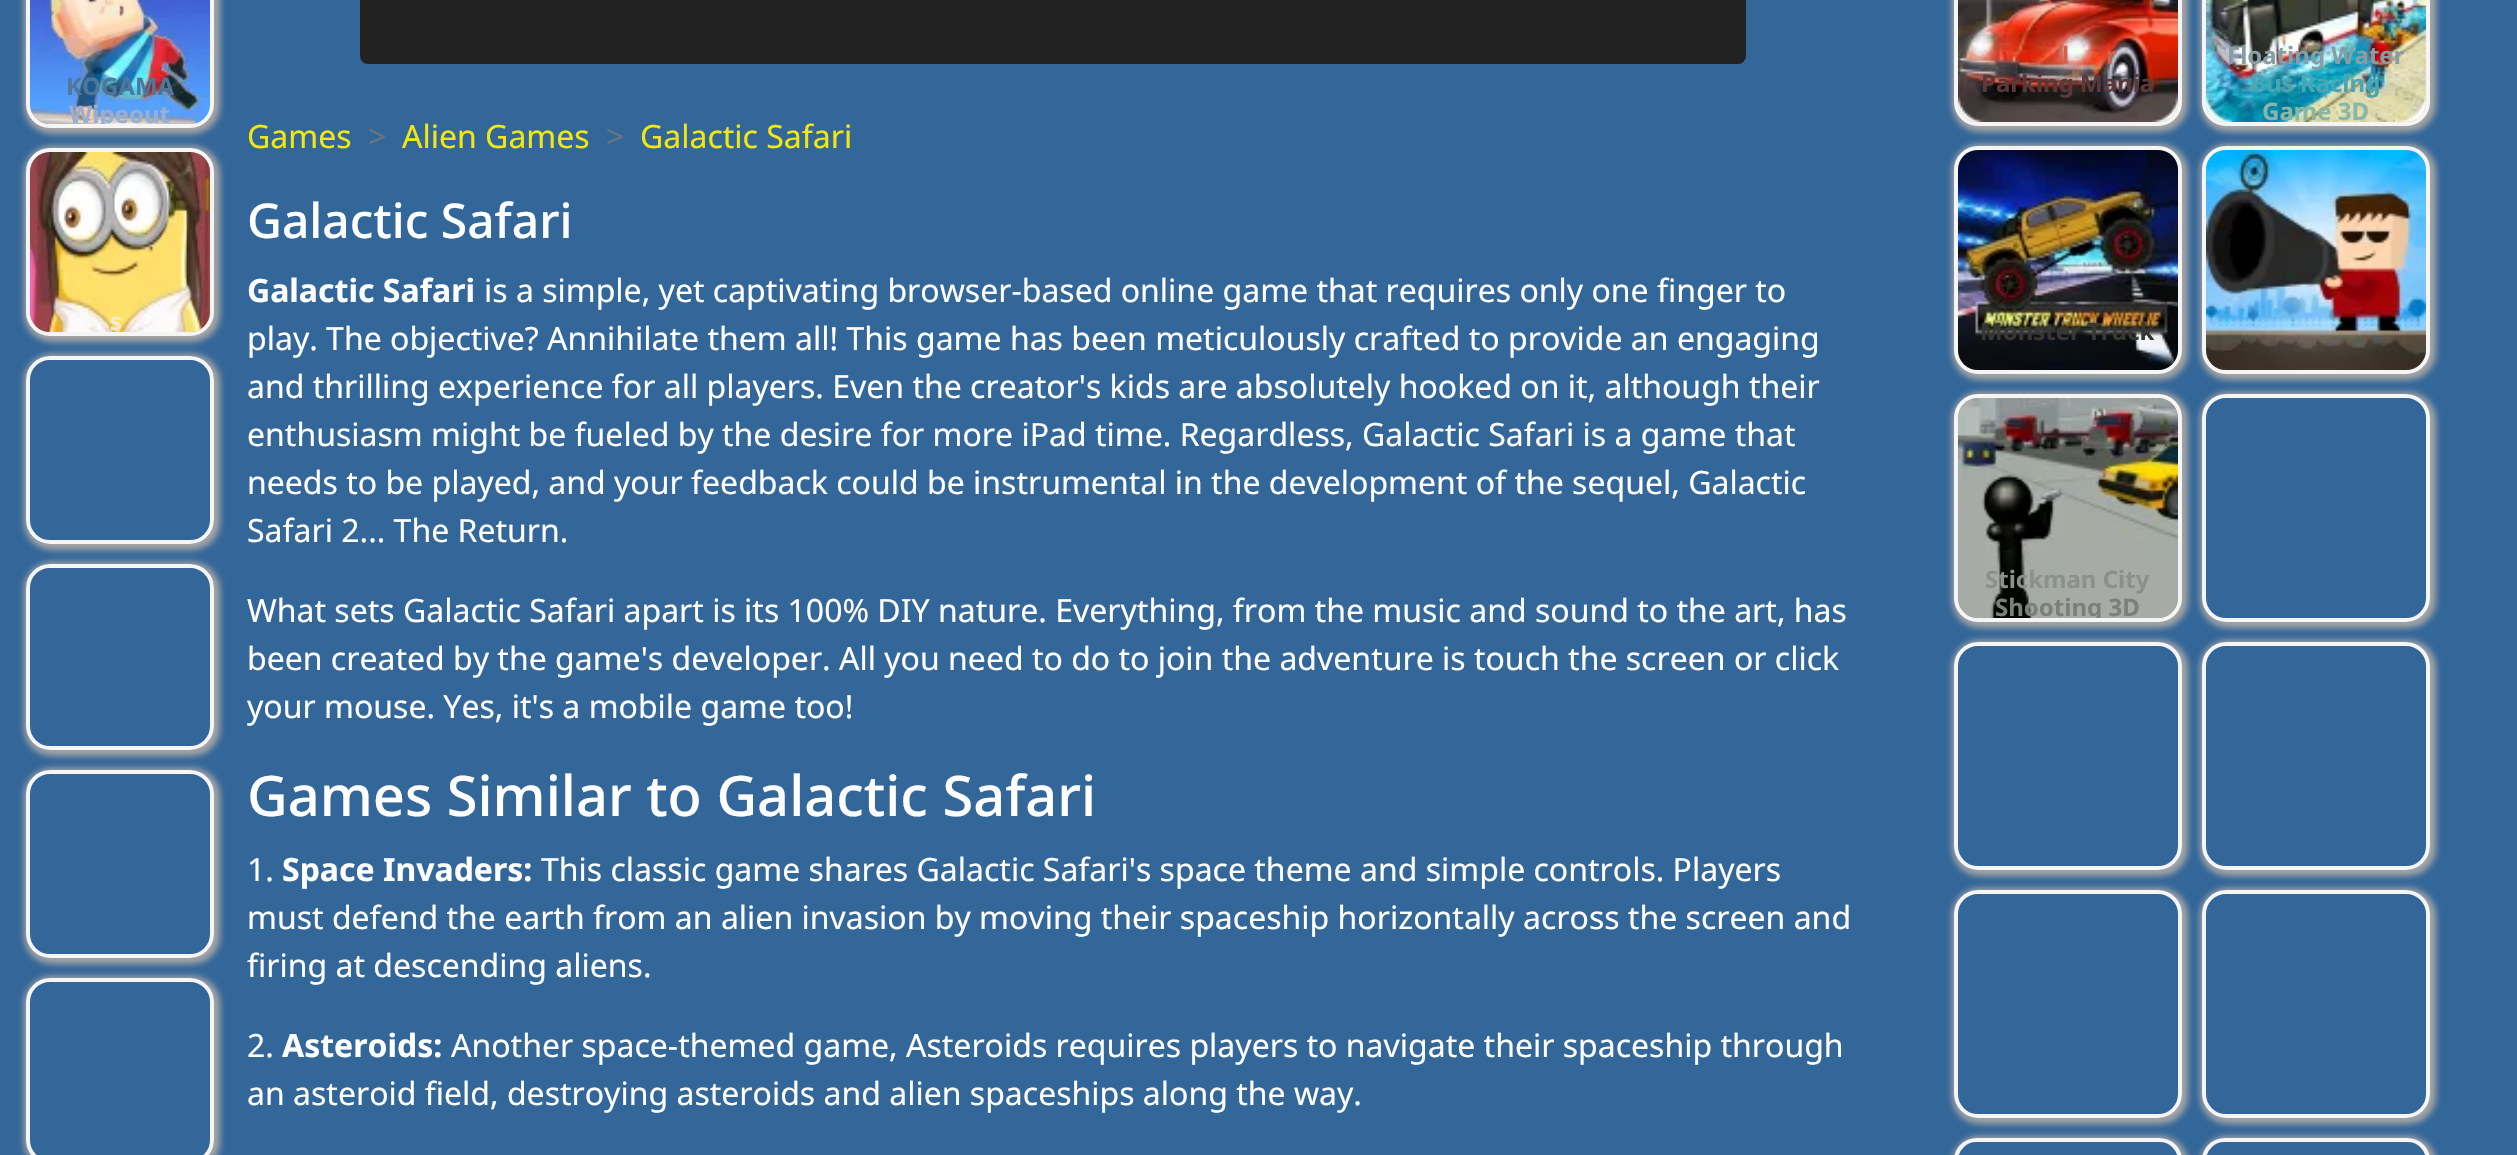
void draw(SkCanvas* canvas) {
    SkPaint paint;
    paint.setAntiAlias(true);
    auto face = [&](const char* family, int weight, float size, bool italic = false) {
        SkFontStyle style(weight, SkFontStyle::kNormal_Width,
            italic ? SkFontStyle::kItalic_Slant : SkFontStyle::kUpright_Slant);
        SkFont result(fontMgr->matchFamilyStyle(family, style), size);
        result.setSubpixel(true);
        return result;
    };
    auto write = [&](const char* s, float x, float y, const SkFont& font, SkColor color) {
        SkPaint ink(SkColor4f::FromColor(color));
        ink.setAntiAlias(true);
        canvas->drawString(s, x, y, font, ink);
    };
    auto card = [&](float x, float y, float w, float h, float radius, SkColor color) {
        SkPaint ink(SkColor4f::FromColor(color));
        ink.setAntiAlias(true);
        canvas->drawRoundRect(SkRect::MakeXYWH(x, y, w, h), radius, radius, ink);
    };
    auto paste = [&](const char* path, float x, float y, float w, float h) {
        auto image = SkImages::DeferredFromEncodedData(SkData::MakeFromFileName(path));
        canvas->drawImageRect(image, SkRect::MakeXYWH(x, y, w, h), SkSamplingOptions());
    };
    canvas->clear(SkColorSetRGB(51, 102, 153));
    paint.setColor(SkColorSetRGB(165, 165, 165));
    paint.setMaskFilter(SkMaskFilter::MakeBlur(kNormal_SkBlurStyle, 3));
    canvas->drawRoundRect(SkRect::MakeXYWH(24, -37, 196, 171), 28, 28, paint);
    paint.setMaskFilter(nullptr);
    paint.setStyle(SkPaint::kStroke_Style);
    paint.setStrokeWidth(4);
    paint.setColor(SkColorSetRGB(245, 245, 245));
    canvas->drawRoundRect(SkRect::MakeXYWH(28, -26, 184, 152), 22, 22, paint);
    paste("pic1.png", 30, 0, 180, 124);
    auto kFont1 = face("Noto Sans", 700, 24);
    write("KOGAMA", 66, 95, kFont1, SkColorSetRGB(79, 119, 156));
    canvas->save();
    canvas->clipPath(SkPathBuilder().moveTo(50, -54).lineTo(190, -54).cubicTo(201, -54, 210, -45, 210, -34).lineTo(210, 104).cubicTo(210, 115, 201, 124, 190, 124).lineTo(50, 124).cubicTo(39, 124, 30, 115, 30, 104).lineTo(30, -34).cubicTo(30, -45, 39, -54, 50, -54).close().detach(), true);
    write("Wipeout", 69, 123, kFont1, SkColorSetRGB(155, 175, 205));
    canvas->restore();
    paint.setStyle(SkPaint::kFill_Style);
    paint.setColor(SkColorSetRGB(165, 165, 165));
    paint.setMaskFilter(SkMaskFilter::MakeBlur(kNormal_SkBlurStyle, 3));
    canvas->drawRoundRect(SkRect::MakeXYWH(24, 146, 196, 196), 28, 28, paint);
    paint.setMaskFilter(nullptr);
    paint.setStyle(SkPaint::kStroke_Style);
    paint.setColor(SkColorSetRGB(245, 245, 245));
    canvas->drawRoundRect(SkRect::MakeXYWH(28, 150, 184, 184), 22, 22, paint);
    paste("pic2.png", 30, 152, 180, 180);
    write("s", 110, 330, kFont1, SkColorSetRGB(246, 235, 210));
    canvas->save();
    canvas->clipPath(SkPathBuilder(SkPathFillType::kEvenOdd).moveTo(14, 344).lineTo(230, 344).lineTo(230, 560).lineTo(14, 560).close().moveTo(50, 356).lineTo(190, 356).cubicTo(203.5f, 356, 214, 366.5f, 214, 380).lineTo(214, 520).cubicTo(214, 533.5f, 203.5f, 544, 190, 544).lineTo(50, 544).cubicTo(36.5f, 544, 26, 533.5f, 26, 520).lineTo(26, 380).cubicTo(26, 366.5f, 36.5f, 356, 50, 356).close().detach(), true);
    paint.setStyle(SkPaint::kFill_Style);
    paint.setColor(SkColorSetRGB(165, 165, 165));
    paint.setMaskFilter(SkMaskFilter::MakeBlur(kNormal_SkBlurStyle, 3));
    canvas->drawRoundRect(SkRect::MakeXYWH(24, 354, 196, 196), 28, 28, paint);
    paint.setMaskFilter(nullptr);
    canvas->restore();
    paint.setStyle(SkPaint::kStroke_Style);
    paint.setColor(SkColorSetRGB(245, 245, 245));
    canvas->drawRoundRect(SkRect::MakeXYWH(28, 358, 184, 184), 22, 22, paint);
    canvas->save();
    canvas->clipPath(SkPathBuilder(SkPathFillType::kEvenOdd).moveTo(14, 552).lineTo(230, 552).lineTo(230, 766).lineTo(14, 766).close().moveTo(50, 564).lineTo(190, 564).cubicTo(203.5f, 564, 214, 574.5f, 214, 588).lineTo(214, 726).cubicTo(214, 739.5f, 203.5f, 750, 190, 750).lineTo(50, 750).cubicTo(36.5f, 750, 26, 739.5f, 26, 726).lineTo(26, 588).cubicTo(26, 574.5f, 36.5f, 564, 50, 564).close().detach(), true);
    paint.setStyle(SkPaint::kFill_Style);
    paint.setColor(SkColorSetRGB(165, 165, 165));
    paint.setMaskFilter(SkMaskFilter::MakeBlur(kNormal_SkBlurStyle, 3));
    canvas->drawRoundRect(SkRect::MakeXYWH(24, 562, 196, 194), 28, 28, paint);
    paint.setMaskFilter(nullptr);
    canvas->restore();
    paint.setStyle(SkPaint::kStroke_Style);
    paint.setColor(SkColorSetRGB(245, 245, 245));
    canvas->drawRoundRect(SkRect::MakeXYWH(28, 566, 184, 182), 22, 22, paint);
    canvas->save();
    canvas->clipPath(SkPathBuilder(SkPathFillType::kEvenOdd).moveTo(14, 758).lineTo(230, 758).lineTo(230, 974).lineTo(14, 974).close().moveTo(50, 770).lineTo(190, 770).cubicTo(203.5f, 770, 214, 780.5f, 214, 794).lineTo(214, 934).cubicTo(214, 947.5f, 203.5f, 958, 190, 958).lineTo(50, 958).cubicTo(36.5f, 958, 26, 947.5f, 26, 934).lineTo(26, 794).cubicTo(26, 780.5f, 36.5f, 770, 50, 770).close().detach(), true);
    paint.setStyle(SkPaint::kFill_Style);
    paint.setColor(SkColorSetRGB(165, 165, 165));
    paint.setMaskFilter(SkMaskFilter::MakeBlur(kNormal_SkBlurStyle, 3));
    canvas->drawRoundRect(SkRect::MakeXYWH(24, 768, 196, 196), 28, 28, paint);
    paint.setMaskFilter(nullptr);
    canvas->restore();
    paint.setStyle(SkPaint::kStroke_Style);
    paint.setColor(SkColorSetRGB(245, 245, 245));
    canvas->drawRoundRect(SkRect::MakeXYWH(28, 772, 184, 184), 22, 22, paint);
    canvas->save();
    canvas->clipPath(SkPathBuilder(SkPathFillType::kEvenOdd).moveTo(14, 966).lineTo(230, 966).lineTo(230, 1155).lineTo(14, 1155).close().moveTo(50, 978).lineTo(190, 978).cubicTo(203.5f, 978, 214, 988.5f, 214, 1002).lineTo(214, 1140).cubicTo(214, 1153.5f, 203.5f, 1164, 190, 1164).lineTo(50, 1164).cubicTo(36.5f, 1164, 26, 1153.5f, 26, 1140).lineTo(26, 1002).cubicTo(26, 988.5f, 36.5f, 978, 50, 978).close().detach(), true);
    paint.setStyle(SkPaint::kFill_Style);
    paint.setColor(SkColorSetRGB(165, 165, 165));
    paint.setMaskFilter(SkMaskFilter::MakeBlur(kNormal_SkBlurStyle, 3));
    canvas->drawRoundRect(SkRect::MakeXYWH(24, 976, 196, 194), 28, 28, paint);
    paint.setMaskFilter(nullptr);
    canvas->restore();
    paint.setStyle(SkPaint::kStroke_Style);
    paint.setColor(SkColorSetRGB(245, 245, 245));
    canvas->drawRoundRect(SkRect::MakeXYWH(28, 980, 184, 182), 22, 22, paint);
    card(360, -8, 1386, 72, 8, SkColorSetRGB(34, 34, 34));
    auto kFont2 = face("Noto Sans", 400, 32);
    write("Games", 247, 148, kFont2, SkColorSetRGB(240, 231, 19));
    write(">", 368, 148, kFont2, SkColorSetRGB(108, 117, 125));
    write("Alien Games", 402, 148, kFont2, SkColorSetRGB(240, 231, 19));
    write(">", 606, 148, kFont2, SkColorSetRGB(108, 117, 125));
    write("Galactic Safari", 640, 148, kFont2, SkColorSetRGB(240, 231, 19));
    auto kFont3 = face("Noto Sans", 500, 48);
    write("Galactic Safari", 247, 238, kFont3, SK_ColorWHITE);
    auto kFont4 = face("Noto Sans", 700, 32);
    write("Galactic Safari", 247, 302, kFont4, SK_ColorWHITE);
    write("is a simple, yet captivating browser-based online game that requires only one finger to", 484, 302, kFont2, SK_ColorWHITE);
    write("play. The objective? Annihilate them all! This game has been meticulously crafted to provide an engaging", 247, 350, kFont2, SK_ColorWHITE);
    write("and thrilling experience for all players. Even the creator's kids are absolutely hooked on it, although their", 247, 398, kFont2, SK_ColorWHITE);
    write("enthusiasm might be fueled by the desire for more iPad time. Regardless, Galactic Safari is a game that", 247, 446, kFont2, SK_ColorWHITE);
    write("needs to be played, and your feedback could be instrumental in the development of the sequel, Galactic", 247, 494, kFont2, SK_ColorWHITE);
    write("Safari 2... The Return.", 247, 542, kFont2, SK_ColorWHITE);
    write("What sets Galactic Safari apart is its 100% DIY nature. Everything, from the music and sound to the art, has", 247, 622, kFont2, SK_ColorWHITE);
    write("been created by the game's developer. All you need to do to join the adventure is touch the screen or click", 247, 670, kFont2, SK_ColorWHITE);
    write("your mouse. Yes, it's a mobile game too!", 247, 718, kFont2, SK_ColorWHITE);
    auto kFont5 = face("Noto Sans", 500, 56);
    write("Games Similar to Galactic Safari", 247, 816, kFont5, SK_ColorWHITE);
    write("1.", 247, 881, kFont2, SK_ColorWHITE);
    write("Space Invaders:", 282, 881, kFont4, SK_ColorWHITE);
    write("This classic game shares Galactic Safari's space theme and simple controls. Players", 541, 881, kFont2, SK_ColorWHITE);
    write("must defend the earth from an alien invasion by moving their spaceship horizontally across the screen and", 247, 929, kFont2, SK_ColorWHITE);
    write("firing at descending aliens.", 247, 977, kFont2, SK_ColorWHITE);
    write("2.", 247, 1057, kFont2, SK_ColorWHITE);
    write("Asteroids:", 282, 1057, kFont4, SK_ColorWHITE);
    write("Another space-themed game, Asteroids requires players to navigate their spaceship through", 451, 1057, kFont2, SK_ColorWHITE);
    write("an asteroid field, destroying asteroids and alien spaceships along the way.", 247, 1105, kFont2, SK_ColorWHITE);
    paint.setStyle(SkPaint::kFill_Style);
    paint.setColor(SkColorSetRGB(165, 165, 165));
    paint.setMaskFilter(SkMaskFilter::MakeBlur(kNormal_SkBlurStyle, 3));
    canvas->drawRoundRect(SkRect::MakeXYWH(1952, -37, 236, 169), 28, 28, paint);
    paint.setMaskFilter(nullptr);
    paint.setStyle(SkPaint::kStroke_Style);
    paint.setColor(SkColorSetRGB(245, 245, 245));
    canvas->drawRoundRect(SkRect::MakeXYWH(1956, -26, 224, 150), 22, 22, paint);
    paste("pic3.png", 1958, 0, 220, 122);
    write("l", 2062, 64, kFont1, SkColorSetRGB(216, 96, 75));
    write("r", 2106, 64, kFont1, SkColorSetRGB(216, 96, 75));
    write("Parking Mania", 1981, 92, kFont1, SkColorSetRGB(89, 58, 57));
    paint.setStyle(SkPaint::kFill_Style);
    paint.setColor(SkColorSetRGB(165, 165, 165));
    paint.setMaskFilter(SkMaskFilter::MakeBlur(kNormal_SkBlurStyle, 3));
    canvas->drawRoundRect(SkRect::MakeXYWH(2200, -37, 236, 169), 28, 28, paint);
    paint.setMaskFilter(nullptr);
    paint.setStyle(SkPaint::kStroke_Style);
    paint.setColor(SkColorSetRGB(245, 245, 245));
    canvas->drawRoundRect(SkRect::MakeXYWH(2204, -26, 224, 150), 22, 22, paint);
    paste("pic4.png", 2206, 0, 220, 122);
    write("Floating Water", 2227, 64, kFont1, SkColorSetRGB(135, 157, 163));
    write("Bus Racing", 2250, 92, kFont1, SkColorSetRGB(75, 166, 179));
    write("Game 3D", 2262, 120, kFont1, SkColorSetRGB(137, 183, 167));
    paint.setStyle(SkPaint::kFill_Style);
    paint.setColor(SkColorSetRGB(165, 165, 165));
    paint.setMaskFilter(SkMaskFilter::MakeBlur(kNormal_SkBlurStyle, 3));
    canvas->drawRoundRect(SkRect::MakeXYWH(1952, 144, 236, 236), 28, 28, paint);
    paint.setMaskFilter(nullptr);
    paint.setStyle(SkPaint::kStroke_Style);
    paint.setColor(SkColorSetRGB(245, 245, 245));
    canvas->drawRoundRect(SkRect::MakeXYWH(1956, 148, 224, 224), 22, 22, paint);
    paste("pic5.png", 1958, 150, 220, 220);
    write("Monster Truck", 1980, 340, kFont1, SkColorSetRGB(55, 55, 51));
    paint.setStyle(SkPaint::kFill_Style);
    paint.setColor(SkColorSetRGB(165, 165, 165));
    paint.setMaskFilter(SkMaskFilter::MakeBlur(kNormal_SkBlurStyle, 3));
    canvas->drawRoundRect(SkRect::MakeXYWH(2200, 144, 236, 236), 28, 28, paint);
    paint.setMaskFilter(nullptr);
    paint.setStyle(SkPaint::kStroke_Style);
    paint.setColor(SkColorSetRGB(245, 245, 245));
    canvas->drawRoundRect(SkRect::MakeXYWH(2204, 148, 224, 224), 22, 22, paint);
    paste("pic6.png", 2206, 150, 220, 220);
    paint.setStyle(SkPaint::kFill_Style);
    paint.setColor(SkColorSetRGB(165, 165, 165));
    paint.setMaskFilter(SkMaskFilter::MakeBlur(kNormal_SkBlurStyle, 3));
    canvas->drawRoundRect(SkRect::MakeXYWH(1952, 392, 236, 236), 28, 28, paint);
    paint.setMaskFilter(nullptr);
    paint.setStyle(SkPaint::kStroke_Style);
    paint.setColor(SkColorSetRGB(245, 245, 245));
    canvas->drawRoundRect(SkRect::MakeXYWH(1956, 396, 224, 224), 22, 22, paint);
    paste("pic7.png", 1958, 398, 220, 220);
    write("Stickman City", 1985, 588, kFont1, SkColorSetRGB(139, 144, 139));
    canvas->save();
    canvas->clipPath(SkPathBuilder().moveTo(1978, 398).lineTo(2158, 398).cubicTo(2169, 398, 2178, 407, 2178, 418).lineTo(2178, 598).cubicTo(2178, 609, 2169, 618, 2158, 618).lineTo(1978, 618).cubicTo(1967, 618, 1958, 609, 1958, 598).lineTo(1958, 418).cubicTo(1958, 407, 1967, 398, 1978, 398).close().detach(), true);
    write("Shooting 3D", 1995, 616, kFont1, SkColorSetRGB(124, 128, 123));
    canvas->restore();
    canvas->save();
    canvas->clipPath(SkPathBuilder(SkPathFillType::kEvenOdd).moveTo(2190, 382).lineTo(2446, 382).lineTo(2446, 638).lineTo(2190, 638).close().moveTo(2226, 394).lineTo(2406, 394).cubicTo(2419.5f, 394, 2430, 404.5f, 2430, 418).lineTo(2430, 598).cubicTo(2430, 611.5f, 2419.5f, 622, 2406, 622).lineTo(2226, 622).cubicTo(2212.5f, 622, 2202, 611.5f, 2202, 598).lineTo(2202, 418).cubicTo(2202, 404.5f, 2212.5f, 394, 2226, 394).close().detach(), true);
    paint.setStyle(SkPaint::kFill_Style);
    paint.setColor(SkColorSetRGB(165, 165, 165));
    paint.setMaskFilter(SkMaskFilter::MakeBlur(kNormal_SkBlurStyle, 3));
    canvas->drawRoundRect(SkRect::MakeXYWH(2200, 392, 236, 236), 28, 28, paint);
    paint.setMaskFilter(nullptr);
    canvas->restore();
    paint.setStyle(SkPaint::kStroke_Style);
    paint.setColor(SkColorSetRGB(245, 245, 245));
    canvas->drawRoundRect(SkRect::MakeXYWH(2204, 396, 224, 224), 22, 22, paint);
    canvas->save();
    canvas->clipPath(SkPathBuilder(SkPathFillType::kEvenOdd).moveTo(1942, 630).lineTo(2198, 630).lineTo(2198, 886).lineTo(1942, 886).close().moveTo(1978, 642).lineTo(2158, 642).cubicTo(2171.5f, 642, 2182, 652.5f, 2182, 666).lineTo(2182, 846).cubicTo(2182, 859.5f, 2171.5f, 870, 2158, 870).lineTo(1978, 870).cubicTo(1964.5f, 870, 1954, 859.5f, 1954, 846).lineTo(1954, 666).cubicTo(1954, 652.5f, 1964.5f, 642, 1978, 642).close().detach(), true);
    paint.setStyle(SkPaint::kFill_Style);
    paint.setColor(SkColorSetRGB(165, 165, 165));
    paint.setMaskFilter(SkMaskFilter::MakeBlur(kNormal_SkBlurStyle, 3));
    canvas->drawRoundRect(SkRect::MakeXYWH(1952, 640, 236, 236), 28, 28, paint);
    paint.setMaskFilter(nullptr);
    canvas->restore();
    paint.setStyle(SkPaint::kStroke_Style);
    paint.setColor(SkColorSetRGB(245, 245, 245));
    canvas->drawRoundRect(SkRect::MakeXYWH(1956, 644, 224, 224), 22, 22, paint);
    canvas->save();
    canvas->clipPath(SkPathBuilder(SkPathFillType::kEvenOdd).moveTo(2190, 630).lineTo(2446, 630).lineTo(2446, 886).lineTo(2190, 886).close().moveTo(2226, 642).lineTo(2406, 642).cubicTo(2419.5f, 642, 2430, 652.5f, 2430, 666).lineTo(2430, 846).cubicTo(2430, 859.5f, 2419.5f, 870, 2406, 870).lineTo(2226, 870).cubicTo(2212.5f, 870, 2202, 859.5f, 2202, 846).lineTo(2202, 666).cubicTo(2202, 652.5f, 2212.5f, 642, 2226, 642).close().detach(), true);
    paint.setStyle(SkPaint::kFill_Style);
    paint.setColor(SkColorSetRGB(165, 165, 165));
    paint.setMaskFilter(SkMaskFilter::MakeBlur(kNormal_SkBlurStyle, 3));
    canvas->drawRoundRect(SkRect::MakeXYWH(2200, 640, 236, 236), 28, 28, paint);
    paint.setMaskFilter(nullptr);
    canvas->restore();
    paint.setStyle(SkPaint::kStroke_Style);
    paint.setColor(SkColorSetRGB(245, 245, 245));
    canvas->drawRoundRect(SkRect::MakeXYWH(2204, 644, 224, 224), 22, 22, paint);
    canvas->save();
    canvas->clipPath(SkPathBuilder(SkPathFillType::kEvenOdd).moveTo(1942, 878).lineTo(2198, 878).lineTo(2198, 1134).lineTo(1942, 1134).close().moveTo(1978, 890).lineTo(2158, 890).cubicTo(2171.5f, 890, 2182, 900.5f, 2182, 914).lineTo(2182, 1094).cubicTo(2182, 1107.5f, 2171.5f, 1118, 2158, 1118).lineTo(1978, 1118).cubicTo(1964.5f, 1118, 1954, 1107.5f, 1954, 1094).lineTo(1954, 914).cubicTo(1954, 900.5f, 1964.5f, 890, 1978, 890).close().detach(), true);
    paint.setStyle(SkPaint::kFill_Style);
    paint.setColor(SkColorSetRGB(165, 165, 165));
    paint.setMaskFilter(SkMaskFilter::MakeBlur(kNormal_SkBlurStyle, 3));
    canvas->drawRoundRect(SkRect::MakeXYWH(1952, 888, 236, 236), 28, 28, paint);
    paint.setMaskFilter(nullptr);
    canvas->restore();
    paint.setStyle(SkPaint::kStroke_Style);
    paint.setColor(SkColorSetRGB(245, 245, 245));
    canvas->drawRoundRect(SkRect::MakeXYWH(1956, 892, 224, 224), 22, 22, paint);
    canvas->save();
    canvas->clipPath(SkPathBuilder(SkPathFillType::kEvenOdd).moveTo(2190, 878).lineTo(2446, 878).lineTo(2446, 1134).lineTo(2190, 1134).close().moveTo(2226, 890).lineTo(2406, 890).cubicTo(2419.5f, 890, 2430, 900.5f, 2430, 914).lineTo(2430, 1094).cubicTo(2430, 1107.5f, 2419.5f, 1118, 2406, 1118).lineTo(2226, 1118).cubicTo(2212.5f, 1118, 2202, 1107.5f, 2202, 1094).lineTo(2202, 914).cubicTo(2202, 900.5f, 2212.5f, 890, 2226, 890).close().detach(), true);
    paint.setStyle(SkPaint::kFill_Style);
    paint.setColor(SkColorSetRGB(165, 165, 165));
    paint.setMaskFilter(SkMaskFilter::MakeBlur(kNormal_SkBlurStyle, 3));
    canvas->drawRoundRect(SkRect::MakeXYWH(2200, 888, 236, 236), 28, 28, paint);
    paint.setMaskFilter(nullptr);
    canvas->restore();
    paint.setStyle(SkPaint::kStroke_Style);
    paint.setColor(SkColorSetRGB(245, 245, 245));
    canvas->drawRoundRect(SkRect::MakeXYWH(2204, 892, 224, 224), 22, 22, paint);
    canvas->save();
    canvas->clipPath(SkPathBuilder(SkPathFillType::kEvenOdd).moveTo(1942, 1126).lineTo(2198, 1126).lineTo(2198, 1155).lineTo(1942, 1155).close().moveTo(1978, 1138).lineTo(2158, 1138).cubicTo(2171.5f, 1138, 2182, 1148.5f, 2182, 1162).lineTo(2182, 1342).cubicTo(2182, 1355.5f, 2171.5f, 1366, 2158, 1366).lineTo(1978, 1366).cubicTo(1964.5f, 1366, 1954, 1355.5f, 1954, 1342).lineTo(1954, 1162).cubicTo(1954, 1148.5f, 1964.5f, 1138, 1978, 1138).close().detach(), true);
    paint.setStyle(SkPaint::kFill_Style);
    paint.setColor(SkColorSetRGB(165, 165, 165));
    paint.setMaskFilter(SkMaskFilter::MakeBlur(kNormal_SkBlurStyle, 3));
    canvas->drawRoundRect(SkRect::MakeXYWH(1952, 1136, 236, 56), 28, 28, paint);
    paint.setMaskFilter(nullptr);
    canvas->restore();
    paint.setStyle(SkPaint::kStroke_Style);
    paint.setColor(SkColorSetRGB(245, 245, 245));
    canvas->drawRoundRect(SkRect::MakeXYWH(1956, 1140, 224, 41), 22, 22, paint);
    canvas->save();
    canvas->clipPath(SkPathBuilder(SkPathFillType::kEvenOdd).moveTo(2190, 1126).lineTo(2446, 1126).lineTo(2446, 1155).lineTo(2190, 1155).close().moveTo(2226, 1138).lineTo(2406, 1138).cubicTo(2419.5f, 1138, 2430, 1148.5f, 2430, 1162).lineTo(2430, 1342).cubicTo(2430, 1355.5f, 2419.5f, 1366, 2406, 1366).lineTo(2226, 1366).cubicTo(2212.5f, 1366, 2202, 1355.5f, 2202, 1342).lineTo(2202, 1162).cubicTo(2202, 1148.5f, 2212.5f, 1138, 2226, 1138).close().detach(), true);
    paint.setStyle(SkPaint::kFill_Style);
    paint.setColor(SkColorSetRGB(165, 165, 165));
    paint.setMaskFilter(SkMaskFilter::MakeBlur(kNormal_SkBlurStyle, 3));
    canvas->drawRoundRect(SkRect::MakeXYWH(2200, 1136, 236, 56), 28, 28, paint);
    paint.setMaskFilter(nullptr);
    canvas->restore();
    paint.setStyle(SkPaint::kStroke_Style);
    paint.setColor(SkColorSetRGB(245, 245, 245));
    canvas->drawRoundRect(SkRect::MakeXYWH(2204, 1140, 224, 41), 22, 22, paint);
}
